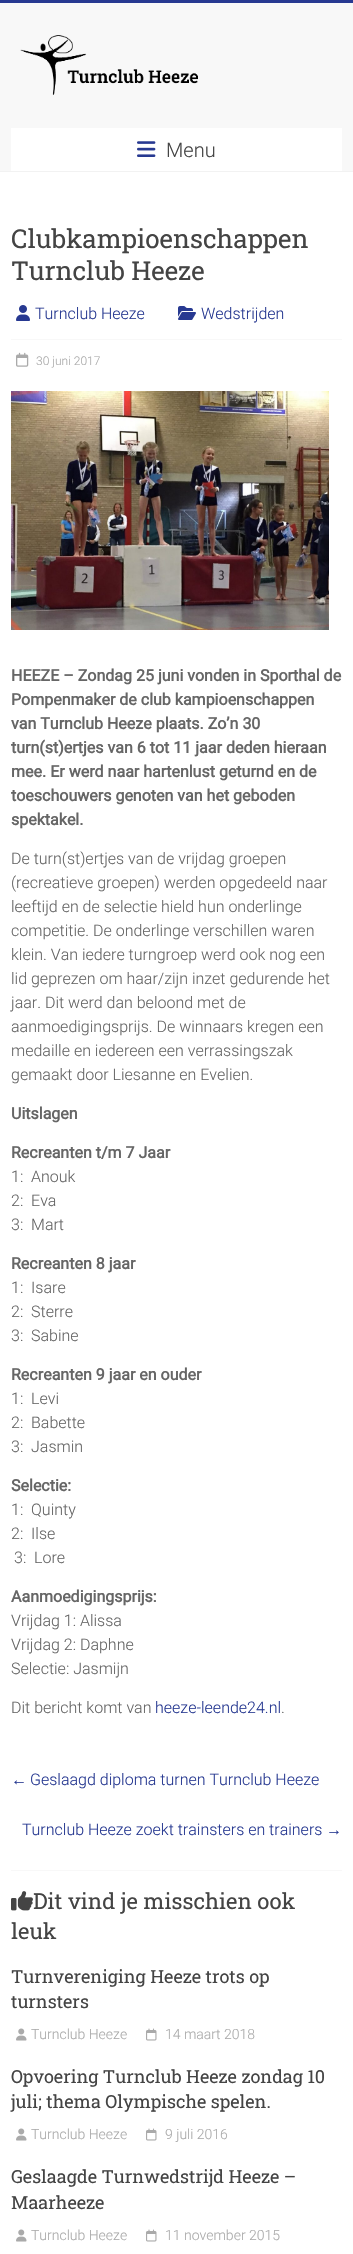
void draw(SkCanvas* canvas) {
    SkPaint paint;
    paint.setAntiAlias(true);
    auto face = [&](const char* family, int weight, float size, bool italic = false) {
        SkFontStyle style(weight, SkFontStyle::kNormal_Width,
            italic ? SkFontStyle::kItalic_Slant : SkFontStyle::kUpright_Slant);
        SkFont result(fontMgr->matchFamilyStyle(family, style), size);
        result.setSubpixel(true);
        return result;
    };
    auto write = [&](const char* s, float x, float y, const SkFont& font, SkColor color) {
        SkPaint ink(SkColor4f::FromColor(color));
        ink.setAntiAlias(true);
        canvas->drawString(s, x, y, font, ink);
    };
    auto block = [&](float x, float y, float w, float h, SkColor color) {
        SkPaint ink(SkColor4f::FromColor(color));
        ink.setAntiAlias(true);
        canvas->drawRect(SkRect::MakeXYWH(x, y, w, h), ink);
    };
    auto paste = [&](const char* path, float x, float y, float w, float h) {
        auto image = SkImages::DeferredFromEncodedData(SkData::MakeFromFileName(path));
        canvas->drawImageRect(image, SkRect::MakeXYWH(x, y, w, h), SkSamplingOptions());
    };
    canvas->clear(SK_ColorWHITE);
    block(0, 0, 353, 3, SkColorSetRGB(39, 57, 145));
    block(0, 3, 353, 168, SkColorSetRGB(248, 248, 248));
    block(0, 171, 353, 1, SkColorSetRGB(242, 242, 242));
    paste("pic1.png", 20, 35, 178, 60);
    block(11, 128, 331, 43, SK_ColorWHITE);
    paste("pic2.png", 137, 141, 19, 16);
    auto kFont1 = face("Roboto", 300, 20);
    write("Menu", 166, 157, kFont1, SkColorSetRGB(68, 68, 68));
    auto kFont2 = face("Roboto Slab", 400, 26);
    write("Clubkampioenschappen", 11, 248, kFont2, SkColorSetRGB(68, 68, 68));
    write("Turnclub Heeze", 11, 280, kFont2, SkColorSetRGB(68, 68, 68));
    paste("pic3.png", 16, 305, 14, 16);
    auto kFont3 = face("Roboto", 300, 16);
    write("Turnclub Heeze", 35, 319, kFont3, SkColorSetRGB(39, 57, 145));
    paste("pic4.png", 178, 306, 18, 14);
    write("Wedstrijden", 201, 319, kFont3, SkColorSetRGB(39, 57, 145));
    block(11, 339, 331, 1, SkColorSetRGB(248, 248, 248));
    paste("pic5.png", 16, 352, 13, 15);
    auto kFont4 = face("Roboto", 300, 12);
    write("30 juni 2017", 36, 365, kFont4, SkColorSetRGB(170, 170, 170));
    paste("pic6.png", 11, 391, 318, 239);
    auto kFont5 = face("Roboto", 700, 16);
    write("HEEZE – Zondag 25 juni vonden in Sporthal de", 11, 681, kFont5, SkColorSetRGB(102, 102, 102));
    write("Pompenmaker de club kampioenschappen", 11, 705, kFont5, SkColorSetRGB(102, 102, 102));
    write("van Turnclub Heeze plaats. Zo’n 30", 11, 729, kFont5, SkColorSetRGB(102, 102, 102));
    write("turn(st)ertjes van 6 tot 11 jaar deden hieraan", 11, 753, kFont5, SkColorSetRGB(102, 102, 102));
    write("mee. Er werd naar hartenlust geturnd en de", 11, 777, kFont5, SkColorSetRGB(102, 102, 102));
    write("toeschouwers genoten van het geboden", 11, 801, kFont5, SkColorSetRGB(102, 102, 102));
    write("spektakel.", 11, 825, kFont5, SkColorSetRGB(102, 102, 102));
    write("De turn(st)ertjes van de vrijdag groepen", 11, 864, kFont3, SkColorSetRGB(102, 102, 102));
    write("(recreatieve groepen) werden opgedeeld naar", 11, 888, kFont3, SkColorSetRGB(102, 102, 102));
    write("leeftijd en de selectie hield hun onderlinge", 11, 912, kFont3, SkColorSetRGB(102, 102, 102));
    write("competitie. De onderlinge verschillen waren", 11, 936, kFont3, SkColorSetRGB(102, 102, 102));
    write("klein. Van iedere turngroep werd ook nog een", 11, 960, kFont3, SkColorSetRGB(102, 102, 102));
    write("lid geprezen om haar/zijn inzet gedurende het", 11, 984, kFont3, SkColorSetRGB(102, 102, 102));
    write("jaar. Dit werd dan beloond met de", 11, 1008, kFont3, SkColorSetRGB(102, 102, 102));
    write("aanmoedigingsprijs. De winnaars kregen een", 11, 1032, kFont3, SkColorSetRGB(102, 102, 102));
    write("medaille en iedereen een verrassingszak", 11, 1056, kFont3, SkColorSetRGB(102, 102, 102));
    write("gemaakt door Liesanne en Evelien.", 11, 1080, kFont3, SkColorSetRGB(102, 102, 102));
    write("Uitslagen", 11, 1119, kFont5, SkColorSetRGB(102, 102, 102));
    write("Recreanten t/m 7 Jaar", 11, 1158, kFont5, SkColorSetRGB(102, 102, 102));
    write("1:  Anouk", 11, 1182, kFont3, SkColorSetRGB(102, 102, 102));
    write("2:  Eva", 11, 1206, kFont3, SkColorSetRGB(102, 102, 102));
    write("3:  Mart", 11, 1230, kFont3, SkColorSetRGB(102, 102, 102));
    write("Recreanten 8 jaar", 11, 1269, kFont5, SkColorSetRGB(102, 102, 102));
    write("1:  Isare", 11, 1293, kFont3, SkColorSetRGB(102, 102, 102));
    write("2:  Sterre", 11, 1317, kFont3, SkColorSetRGB(102, 102, 102));
    write("3:  Sabine", 11, 1341, kFont3, SkColorSetRGB(102, 102, 102));
    write("Recreanten 9 jaar en ouder", 11, 1380, kFont5, SkColorSetRGB(102, 102, 102));
    write("1:  Levi", 11, 1404, kFont3, SkColorSetRGB(102, 102, 102));
    write("2:  Babette", 11, 1428, kFont3, SkColorSetRGB(102, 102, 102));
    write("3:  Jasmin", 11, 1452, kFont3, SkColorSetRGB(102, 102, 102));
    write("Selectie:", 11, 1491, kFont5, SkColorSetRGB(102, 102, 102));
    write("1:  Quinty", 11, 1515, kFont3, SkColorSetRGB(102, 102, 102));
    write("2:  Ilse", 11, 1539, kFont3, SkColorSetRGB(102, 102, 102));
    write("3:  Lore", 14, 1563, kFont3, SkColorSetRGB(102, 102, 102));
    write("Aanmoedigingsprijs:", 11, 1602, kFont5, SkColorSetRGB(102, 102, 102));
    write("Vrijdag 1: Alissa", 11, 1626, kFont3, SkColorSetRGB(102, 102, 102));
    write("Vrijdag 2: Daphne", 11, 1650, kFont3, SkColorSetRGB(102, 102, 102));
    write("Selectie: Jasmijn", 11, 1674, kFont3, SkColorSetRGB(102, 102, 102));
    write("Dit bericht komt van", 11, 1713, kFont3, SkColorSetRGB(102, 102, 102));
    write("heeze-leende24.nl", 155, 1713, kFont3, SkColorSetRGB(39, 57, 145));
    write(".", 281, 1713, kFont3, SkColorSetRGB(102, 102, 102));
    auto kFont6 = face("Liberation Sans", 400, 16);
    write("←", 11, 1785, kFont6, SkColorSetRGB(39, 57, 145));
    write("Geslaagd diploma turnen Turnclub Heeze", 30, 1785, kFont3, SkColorSetRGB(39, 57, 145));
    write("Turnclub Heeze zoekt trainsters en trainers", 22, 1835, kFont3, SkColorSetRGB(39, 57, 145));
    write("→", 326, 1835, kFont6, SkColorSetRGB(39, 57, 145));
    block(11, 1870, 331, 1, SkColorSetRGB(248, 248, 248));
    paste("pic7.png", 11, 1891, 22, 20);
    auto kFont7 = face("Roboto Slab", 400, 22);
    write("Dit vind je misschien ook", 33, 1909, kFont7, SkColorSetRGB(68, 68, 68));
    write("leuk", 11, 1939, kFont7, SkColorSetRGB(68, 68, 68));
    auto kFont8 = face("Roboto Slab", 400, 18);
    write("Turnvereniging Heeze trots op", 11, 1983, kFont8, SkColorSetRGB(68, 68, 68));
    write("turnsters", 11, 2008, kFont8, SkColorSetRGB(68, 68, 68));
    paste("pic8.png", 16, 2028, 11, 13);
    auto kFont9 = face("Roboto", 300, 14);
    write("Turnclub Heeze", 31, 2039, kFont9, SkColorSetRGB(170, 170, 170));
    paste("pic9.png", 146, 2028, 11, 13);
    write("14 maart 2018", 165, 2039, kFont9, SkColorSetRGB(170, 170, 170));
    write("Opvoering Turnclub Heeze zondag 10", 11, 2083, kFont8, SkColorSetRGB(68, 68, 68));
    write("juli; thema Olympische spelen.", 11, 2108, kFont8, SkColorSetRGB(68, 68, 68));
    paste("pic8.png", 16, 2128, 11, 13);
    write("Turnclub Heeze", 31, 2139, kFont9, SkColorSetRGB(170, 170, 170));
    paste("pic9.png", 146, 2128, 11, 13);
    write("9 juli 2016", 165, 2139, kFont9, SkColorSetRGB(170, 170, 170));
    write("Geslaagde Turnwedstrijd Heeze –", 11, 2183, kFont8, SkColorSetRGB(68, 68, 68));
    write("Maarheeze", 11, 2209, kFont8, SkColorSetRGB(68, 68, 68));
    paste("pic8.png", 16, 2229, 11, 13);
    write("Turnclub Heeze", 31, 2240, kFont9, SkColorSetRGB(170, 170, 170));
    paste("pic9.png", 146, 2229, 11, 13);
    write("11 november 2015", 165, 2240, kFont9, SkColorSetRGB(170, 170, 170));
}
